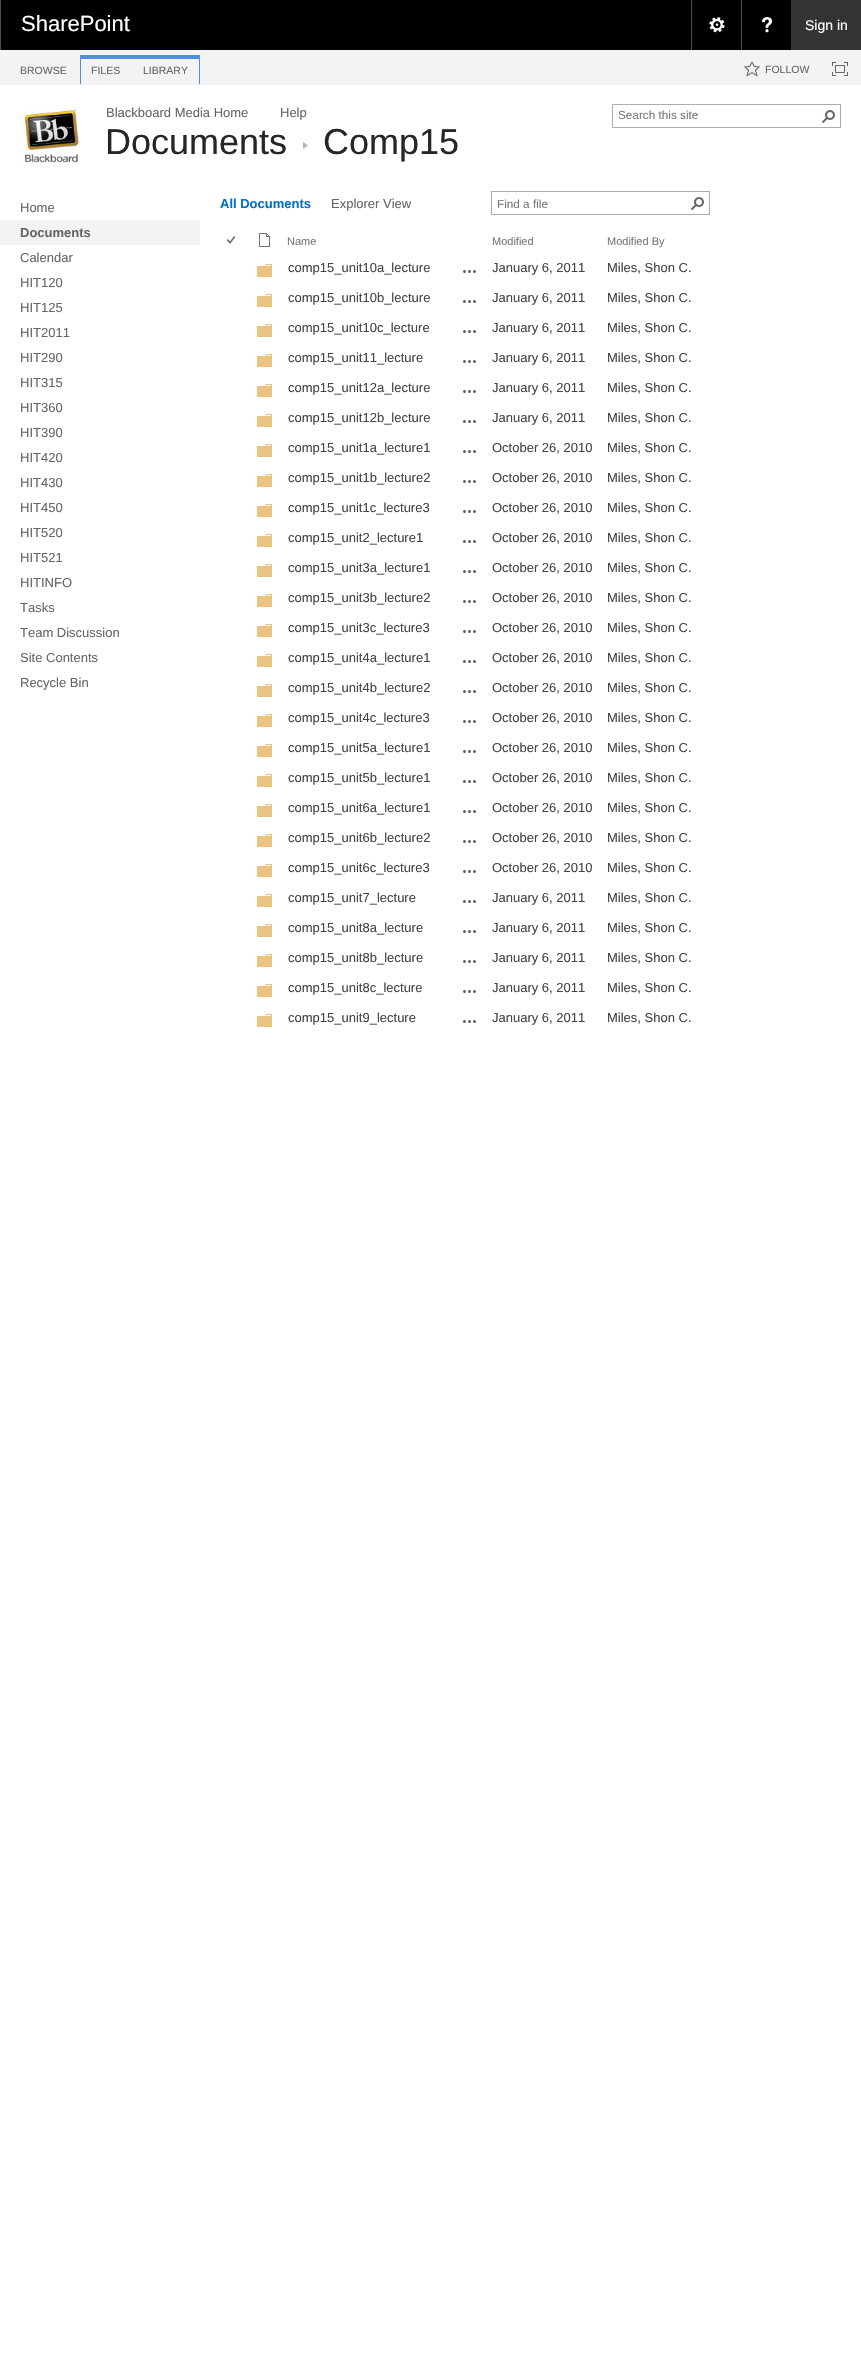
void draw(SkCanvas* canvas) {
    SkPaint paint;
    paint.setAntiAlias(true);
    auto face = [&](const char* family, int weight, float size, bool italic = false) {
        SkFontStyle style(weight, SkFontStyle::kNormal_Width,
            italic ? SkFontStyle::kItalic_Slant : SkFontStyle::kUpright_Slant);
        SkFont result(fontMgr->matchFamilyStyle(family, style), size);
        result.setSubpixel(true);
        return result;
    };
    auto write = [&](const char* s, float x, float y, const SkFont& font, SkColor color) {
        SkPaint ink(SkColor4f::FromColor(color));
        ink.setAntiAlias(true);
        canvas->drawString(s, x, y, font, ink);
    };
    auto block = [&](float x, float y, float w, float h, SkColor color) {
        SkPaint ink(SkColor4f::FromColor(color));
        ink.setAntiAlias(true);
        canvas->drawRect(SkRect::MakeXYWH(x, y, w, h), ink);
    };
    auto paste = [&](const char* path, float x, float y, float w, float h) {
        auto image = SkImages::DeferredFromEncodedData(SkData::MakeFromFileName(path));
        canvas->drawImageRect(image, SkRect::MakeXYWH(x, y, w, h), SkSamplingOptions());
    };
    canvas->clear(SK_ColorWHITE);
    block(1, 0, 790, 50, SK_ColorBLACK);
    block(0, 0, 1, 50, SkColorSetRGB(77, 77, 77));
    auto kFont1 = face("Liberation Sans", 400, 22);
    write("SharePoint", 21, 31, kFont1, SK_ColorWHITE);
    block(691, 0, 1, 50, SkColorSetRGB(77, 77, 77));
    paste("pic1.png", 709, 17, 16, 16);
    block(741, 0, 1, 50, SkColorSetRGB(77, 77, 77));
    paste("pic2.png", 761, 17, 12, 16);
    block(791, 0, 70, 50, SkColorSetRGB(51, 51, 51));
    auto kFont2 = face("Liberation Sans", 400, 14);
    write("Sign in", 805, 30, kFont2, SK_ColorWHITE);
    block(0, 50, 861, 34, SkColorSetRGB(243, 243, 243));
    block(0, 84, 861, 1, SkColorSetRGB(240, 240, 240));
    auto kFont3 = face("Liberation Sans", 400, 10.5f);
    write("BROWSE", 20, 74, kFont3, SkColorSetRGB(102, 102, 102));
    block(80, 55, 120, 4, SkColorSetRGB(80, 142, 230));
    block(80, 59, 1, 25, SkColorSetRGB(80, 142, 230));
    write("FILES", 91, 74, kFont3, SkColorSetRGB(102, 102, 102));
    block(199, 59, 1, 25, SkColorSetRGB(80, 142, 230));
    write("LIBRARY", 143, 74, kFont3, SkColorSetRGB(102, 102, 102));
    paste("pic3.png", 744, 61, 16, 16);
    write("FOLLOW", 765, 73, kFont3, SkColorSetRGB(102, 102, 102));
    paste("pic4.png", 832, 62, 16, 14);
    paste("pic5.png", 20, 109, 59, 57);
    auto kFont4 = face("Liberation Sans", 400, 13);
    write("Blackboard Media Home", 106, 117, kFont4, SkColorSetRGB(102, 102, 102));
    write("Help", 280, 117, kFont4, SkColorSetRGB(102, 102, 102));
    auto kFont5 = face("Liberation Sans", 400, 36);
    write("Documents", 105, 154, kFont5, SkColorSetRGB(38, 38, 38));
    paste("pic6.png", 303, 142, 5, 7);
    write("Comp15", 323, 154, kFont5, SkColorSetRGB(38, 38, 38));
    paint.setStyle(SkPaint::kStroke_Style);
    paint.setStrokeWidth(1);
    paint.setColor(SkColorSetRGB(171, 171, 171));
    canvas->drawRect(SkRect::MakeXYWH(612.5f, 104.5f, 228, 23), paint);
    auto kFont6 = face("Liberation Sans", 400, 11.75f);
    write("Search this site", 618, 119, kFont6, SkColorSetRGB(119, 119, 119));
    paste("pic7.png", 821, 110, 14, 14);
    write("Home", 20, 212, kFont4, SkColorSetRGB(102, 102, 102));
    block(0, 220, 200, 25, SkColorSetRGB(243, 243, 243));
    auto kFont7 = face("Liberation Sans", 700, 13);
    write("Documents", 20, 237, kFont7, SkColorSetRGB(102, 102, 102));
    write("Calendar", 20, 262, kFont4, SkColorSetRGB(102, 102, 102));
    write("HIT120", 20, 287, kFont4, SkColorSetRGB(102, 102, 102));
    write("HIT125", 20, 312, kFont4, SkColorSetRGB(102, 102, 102));
    write("HIT2011", 20, 337, kFont4, SkColorSetRGB(102, 102, 102));
    write("HIT290", 20, 362, kFont4, SkColorSetRGB(102, 102, 102));
    write("HIT315", 20, 387, kFont4, SkColorSetRGB(102, 102, 102));
    write("HIT360", 20, 412, kFont4, SkColorSetRGB(102, 102, 102));
    write("HIT390", 20, 437, kFont4, SkColorSetRGB(102, 102, 102));
    write("HIT420", 20, 462, kFont4, SkColorSetRGB(102, 102, 102));
    write("HIT430", 20, 487, kFont4, SkColorSetRGB(102, 102, 102));
    write("HIT450", 20, 512, kFont4, SkColorSetRGB(102, 102, 102));
    write("HIT520", 20, 537, kFont4, SkColorSetRGB(102, 102, 102));
    write("HIT521", 20, 562, kFont4, SkColorSetRGB(102, 102, 102));
    write("HITINFO", 20, 587, kFont4, SkColorSetRGB(102, 102, 102));
    write("Tasks", 20, 612, kFont4, SkColorSetRGB(102, 102, 102));
    write("Team Discussion", 20, 637, kFont4, SkColorSetRGB(102, 102, 102));
    write("Site Contents", 20, 662, kFont4, SkColorSetRGB(102, 102, 102));
    write("Recycle Bin", 20, 687, kFont4, SkColorSetRGB(102, 102, 102));
    write("All Documents", 220, 208, kFont7, SkColorSetRGB(0, 114, 198));
    write("Explorer View", 331, 208, kFont4, SkColorSetRGB(102, 102, 102));
    canvas->drawRect(SkRect::MakeXYWH(491.5f, 191.5f, 218, 23), paint);
    write("Find a file", 497, 208, kFont6, SkColorSetRGB(119, 119, 119));
    paste("pic7.png", 690, 197, 14, 14);
    paste("pic8.png", 227, 236, 9, 8);
    paste("pic9.png", 259, 233, 11, 14);
    auto kFont8 = face("Liberation Sans", 400, 11);
    write("Name", 287, 245, kFont8, SkColorSetRGB(119, 119, 119));
    write("Modified", 492, 245, kFont8, SkColorSetRGB(119, 119, 119));
    write("Modified By", 607, 245, kFont8, SkColorSetRGB(119, 119, 119));
    paste("pic10.png", 257, 264, 15, 13);
    write("comp15_unit10a_lecture", 288, 272, kFont4, SkColorSetRGB(68, 68, 68));
    paste("pic11.png", 463, 270, 13, 3);
    write("January 6, 2011", 492, 272, kFont4, SkColorSetRGB(68, 68, 68));
    write("Miles, Shon C.", 607, 272, kFont4, SkColorSetRGB(68, 68, 68));
    paste("pic10.png", 257, 294, 15, 13);
    write("comp15_unit10b_lecture", 288, 302, kFont4, SkColorSetRGB(68, 68, 68));
    paste("pic11.png", 463, 300, 13, 3);
    write("January 6, 2011", 492, 302, kFont4, SkColorSetRGB(68, 68, 68));
    write("Miles, Shon C.", 607, 302, kFont4, SkColorSetRGB(68, 68, 68));
    paste("pic10.png", 257, 324, 15, 13);
    write("comp15_unit10c_lecture", 288, 332, kFont4, SkColorSetRGB(68, 68, 68));
    paste("pic11.png", 463, 330, 13, 3);
    write("January 6, 2011", 492, 332, kFont4, SkColorSetRGB(68, 68, 68));
    write("Miles, Shon C.", 607, 332, kFont4, SkColorSetRGB(68, 68, 68));
    paste("pic10.png", 257, 354, 15, 13);
    write("comp15_unit11_lecture", 288, 362, kFont4, SkColorSetRGB(68, 68, 68));
    paste("pic11.png", 463, 360, 13, 3);
    write("January 6, 2011", 492, 362, kFont4, SkColorSetRGB(68, 68, 68));
    write("Miles, Shon C.", 607, 362, kFont4, SkColorSetRGB(68, 68, 68));
    paste("pic10.png", 257, 384, 15, 13);
    write("comp15_unit12a_lecture", 288, 392, kFont4, SkColorSetRGB(68, 68, 68));
    paste("pic11.png", 463, 390, 13, 3);
    write("January 6, 2011", 492, 392, kFont4, SkColorSetRGB(68, 68, 68));
    write("Miles, Shon C.", 607, 392, kFont4, SkColorSetRGB(68, 68, 68));
    paste("pic10.png", 257, 414, 15, 13);
    write("comp15_unit12b_lecture", 288, 422, kFont4, SkColorSetRGB(68, 68, 68));
    paste("pic11.png", 463, 420, 13, 3);
    write("January 6, 2011", 492, 422, kFont4, SkColorSetRGB(68, 68, 68));
    write("Miles, Shon C.", 607, 422, kFont4, SkColorSetRGB(68, 68, 68));
    paste("pic10.png", 257, 444, 15, 13);
    write("comp15_unit1a_lecture1", 288, 452, kFont4, SkColorSetRGB(68, 68, 68));
    paste("pic11.png", 463, 450, 13, 3);
    write("October 26, 2010", 492, 452, kFont4, SkColorSetRGB(68, 68, 68));
    write("Miles, Shon C.", 607, 452, kFont4, SkColorSetRGB(68, 68, 68));
    paste("pic10.png", 257, 474, 15, 13);
    write("comp15_unit1b_lecture2", 288, 482, kFont4, SkColorSetRGB(68, 68, 68));
    paste("pic11.png", 463, 480, 13, 3);
    write("October 26, 2010", 492, 482, kFont4, SkColorSetRGB(68, 68, 68));
    write("Miles, Shon C.", 607, 482, kFont4, SkColorSetRGB(68, 68, 68));
    paste("pic10.png", 257, 504, 15, 13);
    write("comp15_unit1c_lecture3", 288, 512, kFont4, SkColorSetRGB(68, 68, 68));
    paste("pic11.png", 463, 510, 13, 3);
    write("October 26, 2010", 492, 512, kFont4, SkColorSetRGB(68, 68, 68));
    write("Miles, Shon C.", 607, 512, kFont4, SkColorSetRGB(68, 68, 68));
    paste("pic10.png", 257, 534, 15, 13);
    write("comp15_unit2_lecture1", 288, 542, kFont4, SkColorSetRGB(68, 68, 68));
    paste("pic11.png", 463, 540, 13, 3);
    write("October 26, 2010", 492, 542, kFont4, SkColorSetRGB(68, 68, 68));
    write("Miles, Shon C.", 607, 542, kFont4, SkColorSetRGB(68, 68, 68));
    paste("pic10.png", 257, 564, 15, 13);
    write("comp15_unit3a_lecture1", 288, 572, kFont4, SkColorSetRGB(68, 68, 68));
    paste("pic11.png", 463, 570, 13, 3);
    write("October 26, 2010", 492, 572, kFont4, SkColorSetRGB(68, 68, 68));
    write("Miles, Shon C.", 607, 572, kFont4, SkColorSetRGB(68, 68, 68));
    paste("pic10.png", 257, 594, 15, 13);
    write("comp15_unit3b_lecture2", 288, 602, kFont4, SkColorSetRGB(68, 68, 68));
    paste("pic11.png", 463, 600, 13, 3);
    write("October 26, 2010", 492, 602, kFont4, SkColorSetRGB(68, 68, 68));
    write("Miles, Shon C.", 607, 602, kFont4, SkColorSetRGB(68, 68, 68));
    paste("pic10.png", 257, 624, 15, 13);
    write("comp15_unit3c_lecture3", 288, 632, kFont4, SkColorSetRGB(68, 68, 68));
    paste("pic11.png", 463, 630, 13, 3);
    write("October 26, 2010", 492, 632, kFont4, SkColorSetRGB(68, 68, 68));
    write("Miles, Shon C.", 607, 632, kFont4, SkColorSetRGB(68, 68, 68));
    paste("pic10.png", 257, 654, 15, 13);
    write("comp15_unit4a_lecture1", 288, 662, kFont4, SkColorSetRGB(68, 68, 68));
    paste("pic11.png", 463, 660, 13, 3);
    write("October 26, 2010", 492, 662, kFont4, SkColorSetRGB(68, 68, 68));
    write("Miles, Shon C.", 607, 662, kFont4, SkColorSetRGB(68, 68, 68));
    paste("pic10.png", 257, 684, 15, 13);
    write("comp15_unit4b_lecture2", 288, 692, kFont4, SkColorSetRGB(68, 68, 68));
    paste("pic11.png", 463, 690, 13, 3);
    write("October 26, 2010", 492, 692, kFont4, SkColorSetRGB(68, 68, 68));
    write("Miles, Shon C.", 607, 692, kFont4, SkColorSetRGB(68, 68, 68));
    paste("pic10.png", 257, 714, 15, 13);
    write("comp15_unit4c_lecture3", 288, 722, kFont4, SkColorSetRGB(68, 68, 68));
    paste("pic11.png", 463, 720, 13, 3);
    write("October 26, 2010", 492, 722, kFont4, SkColorSetRGB(68, 68, 68));
    write("Miles, Shon C.", 607, 722, kFont4, SkColorSetRGB(68, 68, 68));
    paste("pic10.png", 257, 744, 15, 13);
    write("comp15_unit5a_lecture1", 288, 752, kFont4, SkColorSetRGB(68, 68, 68));
    paste("pic11.png", 463, 750, 13, 3);
    write("October 26, 2010", 492, 752, kFont4, SkColorSetRGB(68, 68, 68));
    write("Miles, Shon C.", 607, 752, kFont4, SkColorSetRGB(68, 68, 68));
    paste("pic10.png", 257, 774, 15, 13);
    write("comp15_unit5b_lecture1", 288, 782, kFont4, SkColorSetRGB(68, 68, 68));
    paste("pic11.png", 463, 780, 13, 3);
    write("October 26, 2010", 492, 782, kFont4, SkColorSetRGB(68, 68, 68));
    write("Miles, Shon C.", 607, 782, kFont4, SkColorSetRGB(68, 68, 68));
    paste("pic10.png", 257, 804, 15, 13);
    write("comp15_unit6a_lecture1", 288, 812, kFont4, SkColorSetRGB(68, 68, 68));
    paste("pic11.png", 463, 810, 13, 3);
    write("October 26, 2010", 492, 812, kFont4, SkColorSetRGB(68, 68, 68));
    write("Miles, Shon C.", 607, 812, kFont4, SkColorSetRGB(68, 68, 68));
    paste("pic10.png", 257, 834, 15, 13);
    write("comp15_unit6b_lecture2", 288, 842, kFont4, SkColorSetRGB(68, 68, 68));
    paste("pic11.png", 463, 840, 13, 3);
    write("October 26, 2010", 492, 842, kFont4, SkColorSetRGB(68, 68, 68));
    write("Miles, Shon C.", 607, 842, kFont4, SkColorSetRGB(68, 68, 68));
    paste("pic10.png", 257, 864, 15, 13);
    write("comp15_unit6c_lecture3", 288, 872, kFont4, SkColorSetRGB(68, 68, 68));
    paste("pic11.png", 463, 870, 13, 3);
    write("October 26, 2010", 492, 872, kFont4, SkColorSetRGB(68, 68, 68));
    write("Miles, Shon C.", 607, 872, kFont4, SkColorSetRGB(68, 68, 68));
    paste("pic10.png", 257, 894, 15, 13);
    write("comp15_unit7_lecture", 288, 902, kFont4, SkColorSetRGB(68, 68, 68));
    paste("pic11.png", 463, 900, 13, 3);
    write("January 6, 2011", 492, 902, kFont4, SkColorSetRGB(68, 68, 68));
    write("Miles, Shon C.", 607, 902, kFont4, SkColorSetRGB(68, 68, 68));
    paste("pic10.png", 257, 924, 15, 13);
    write("comp15_unit8a_lecture", 288, 932, kFont4, SkColorSetRGB(68, 68, 68));
    paste("pic11.png", 463, 930, 13, 3);
    write("January 6, 2011", 492, 932, kFont4, SkColorSetRGB(68, 68, 68));
    write("Miles, Shon C.", 607, 932, kFont4, SkColorSetRGB(68, 68, 68));
    paste("pic10.png", 257, 954, 15, 13);
    write("comp15_unit8b_lecture", 288, 962, kFont4, SkColorSetRGB(68, 68, 68));
    paste("pic11.png", 463, 960, 13, 3);
    write("January 6, 2011", 492, 962, kFont4, SkColorSetRGB(68, 68, 68));
    write("Miles, Shon C.", 607, 962, kFont4, SkColorSetRGB(68, 68, 68));
    paste("pic10.png", 257, 984, 15, 13);
    write("comp15_unit8c_lecture", 288, 992, kFont4, SkColorSetRGB(68, 68, 68));
    paste("pic11.png", 463, 990, 13, 3);
    write("January 6, 2011", 492, 992, kFont4, SkColorSetRGB(68, 68, 68));
    write("Miles, Shon C.", 607, 992, kFont4, SkColorSetRGB(68, 68, 68));
    paste("pic10.png", 257, 1014, 15, 13);
    write("comp15_unit9_lecture", 288, 1022, kFont4, SkColorSetRGB(68, 68, 68));
    paste("pic11.png", 463, 1020, 13, 3);
    write("January 6, 2011", 492, 1022, kFont4, SkColorSetRGB(68, 68, 68));
    write("Miles, Shon C.", 607, 1022, kFont4, SkColorSetRGB(68, 68, 68));
}
